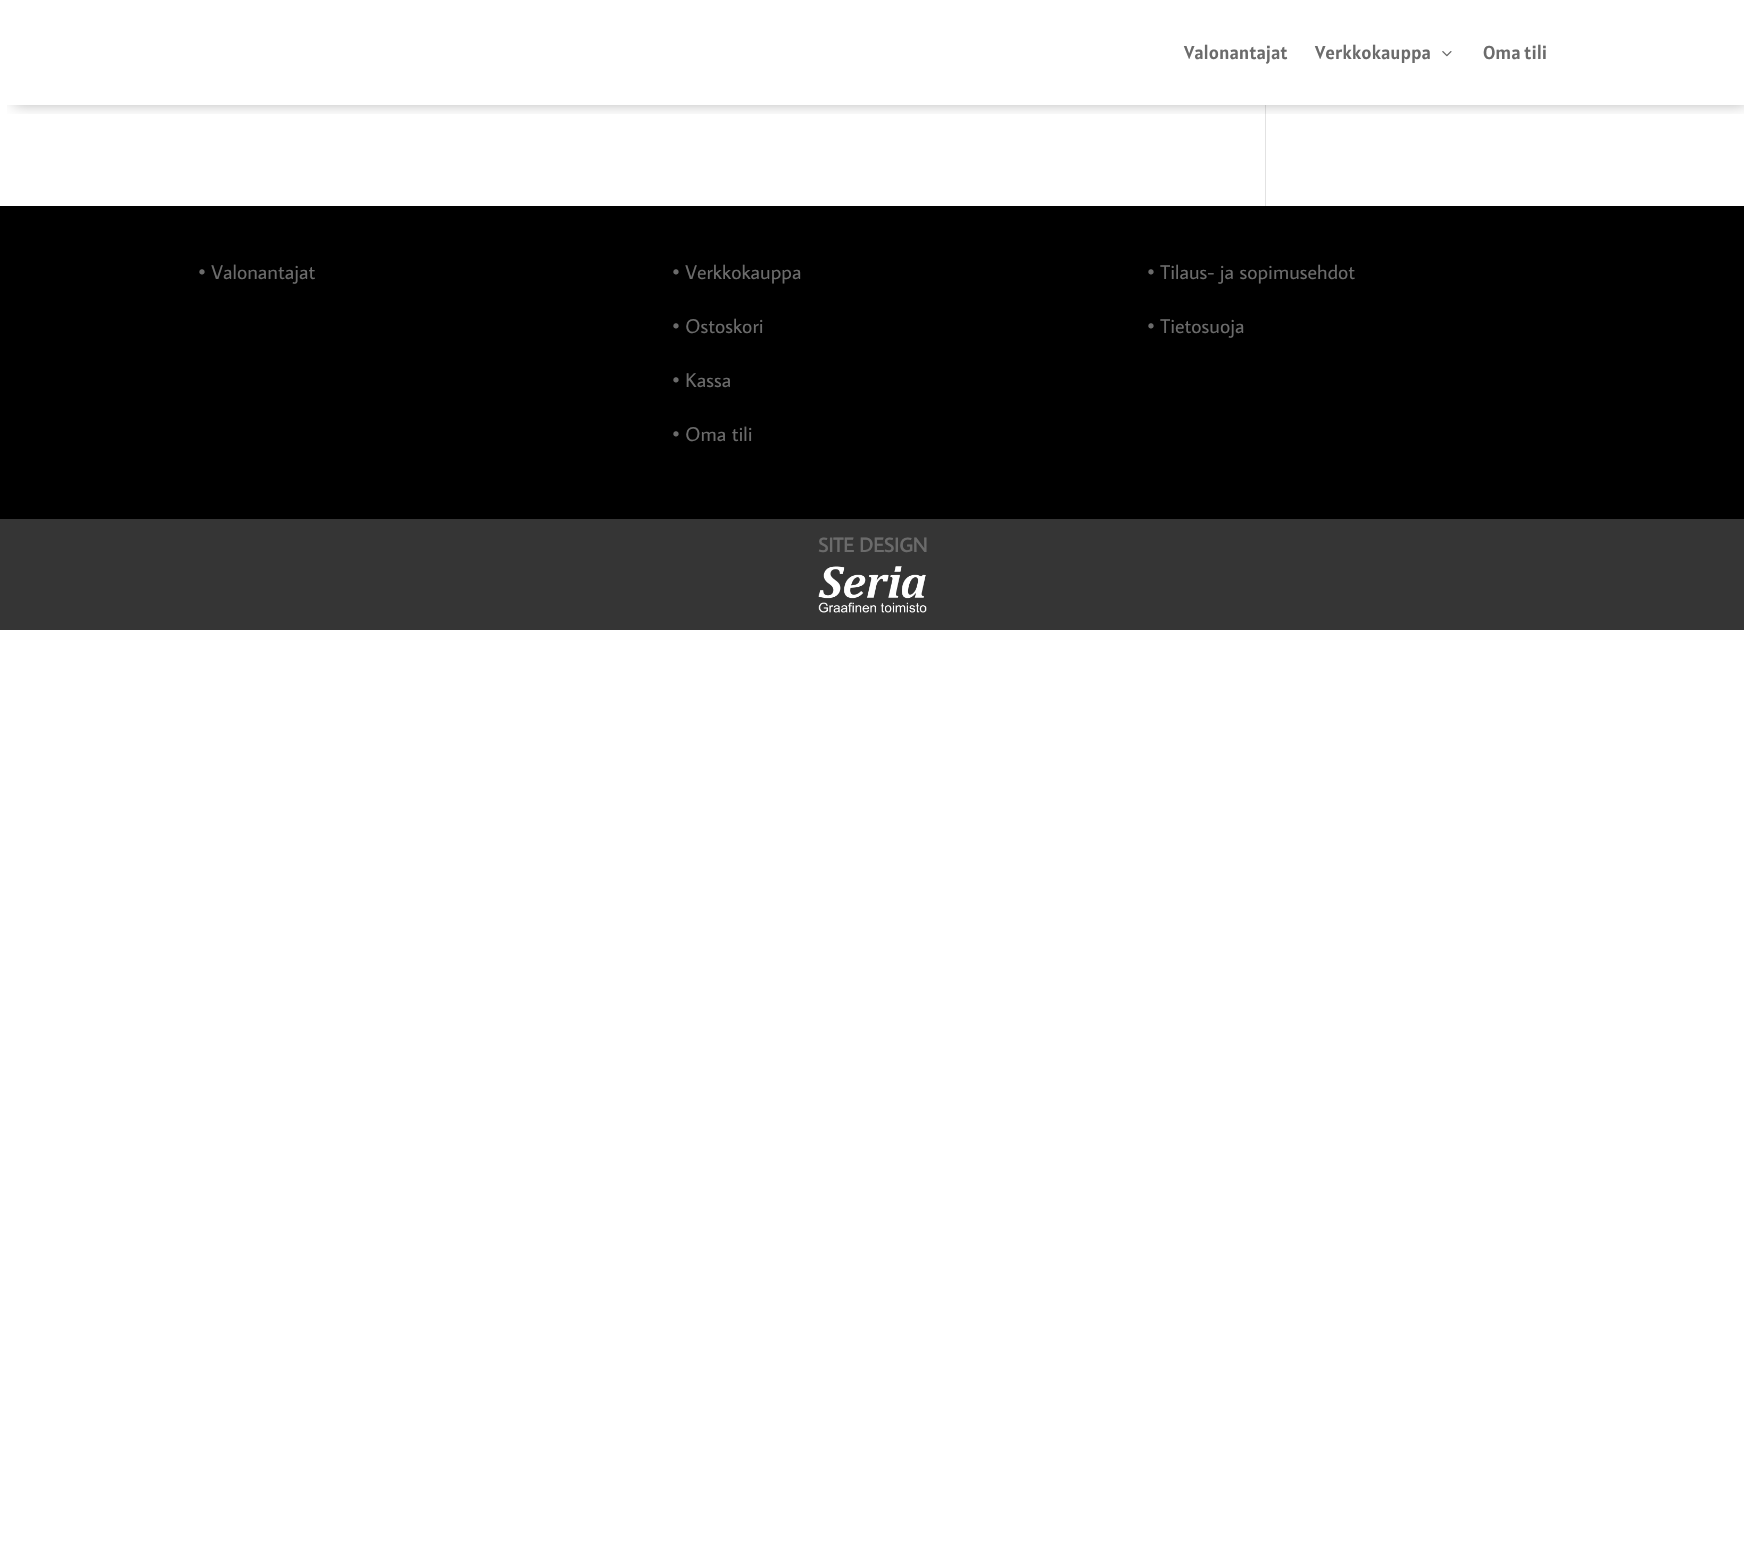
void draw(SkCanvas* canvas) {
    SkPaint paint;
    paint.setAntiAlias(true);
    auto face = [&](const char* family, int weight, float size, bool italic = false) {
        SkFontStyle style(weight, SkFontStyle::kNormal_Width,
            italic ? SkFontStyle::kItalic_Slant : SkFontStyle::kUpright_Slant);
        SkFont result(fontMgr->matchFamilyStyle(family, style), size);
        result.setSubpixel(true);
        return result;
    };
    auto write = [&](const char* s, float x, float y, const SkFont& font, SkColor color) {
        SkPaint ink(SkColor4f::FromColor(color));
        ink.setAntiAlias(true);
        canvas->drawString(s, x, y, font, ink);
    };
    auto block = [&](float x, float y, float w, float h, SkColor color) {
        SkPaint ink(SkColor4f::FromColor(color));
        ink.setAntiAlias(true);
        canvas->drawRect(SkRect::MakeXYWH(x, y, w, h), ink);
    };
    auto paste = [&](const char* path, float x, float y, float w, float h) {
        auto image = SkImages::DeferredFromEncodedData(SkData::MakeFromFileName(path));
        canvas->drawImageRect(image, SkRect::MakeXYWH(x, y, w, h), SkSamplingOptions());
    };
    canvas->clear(SK_ColorWHITE);
    block(1265, 105, 1, 101, SkColorSetRGB(226, 226, 226));
    canvas->save();
    canvas->clipRect(SkRect::MakeXYWH(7, 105, 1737, 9));
    paint.setColor(SkColorSetARGB(77, 0, 0, 0));
    paint.setMaskFilter(SkMaskFilter::MakeBlur(kNormal_SkBlurStyle, 7));
    canvas->drawRect(SkRect::MakeXYWH(14, 11, 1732, 93), paint);
    paint.setMaskFilter(nullptr);
    canvas->restore();
    auto kFont1 = face("Alatsi", 400, 18.75f);
    write("Valonantajat", 1184, 59, kFont1, SkColorSetRGB(107, 107, 107));
    write("Verkkokauppa", 1315, 59, kFont1, SkColorSetRGB(107, 107, 107));
    paste("pic1.png", 1442, 51, 10, 6);
    write("Oma tili", 1483, 59, kFont1, SkColorSetRGB(107, 107, 107));
    block(0, 206, 1744, 313, SK_ColorBLACK);
    auto kFont2 = face("Average Sans", 400, 20);
    write("• Valonantajat", 198, 279, kFont2, SkColorSetRGB(107, 107, 107));
    write("• Verkkokauppa", 672, 279, kFont2, SkColorSetRGB(107, 107, 107));
    write("• Ostoskori", 672, 333, kFont2, SkColorSetRGB(107, 107, 107));
    write("• Kassa", 672, 387, kFont2, SkColorSetRGB(107, 107, 107));
    write("• Oma tili", 672, 441, kFont2, SkColorSetRGB(107, 107, 107));
    write("• Tilaus- ja sopimusehdot", 1147, 279, kFont2, SkColorSetRGB(107, 107, 107));
    write("• Tietosuoja", 1147, 333, kFont2, SkColorSetRGB(107, 107, 107));
    block(0, 519, 1744, 111, SkColorSetRGB(53, 53, 53));
    auto kFont3 = face("Average Sans", 700, 20);
    write("SITE DESIGN", 818, 552, kFont3, SkColorSetRGB(107, 107, 107));
    paste("pic2.png", 818, 566, 109, 47);
}
